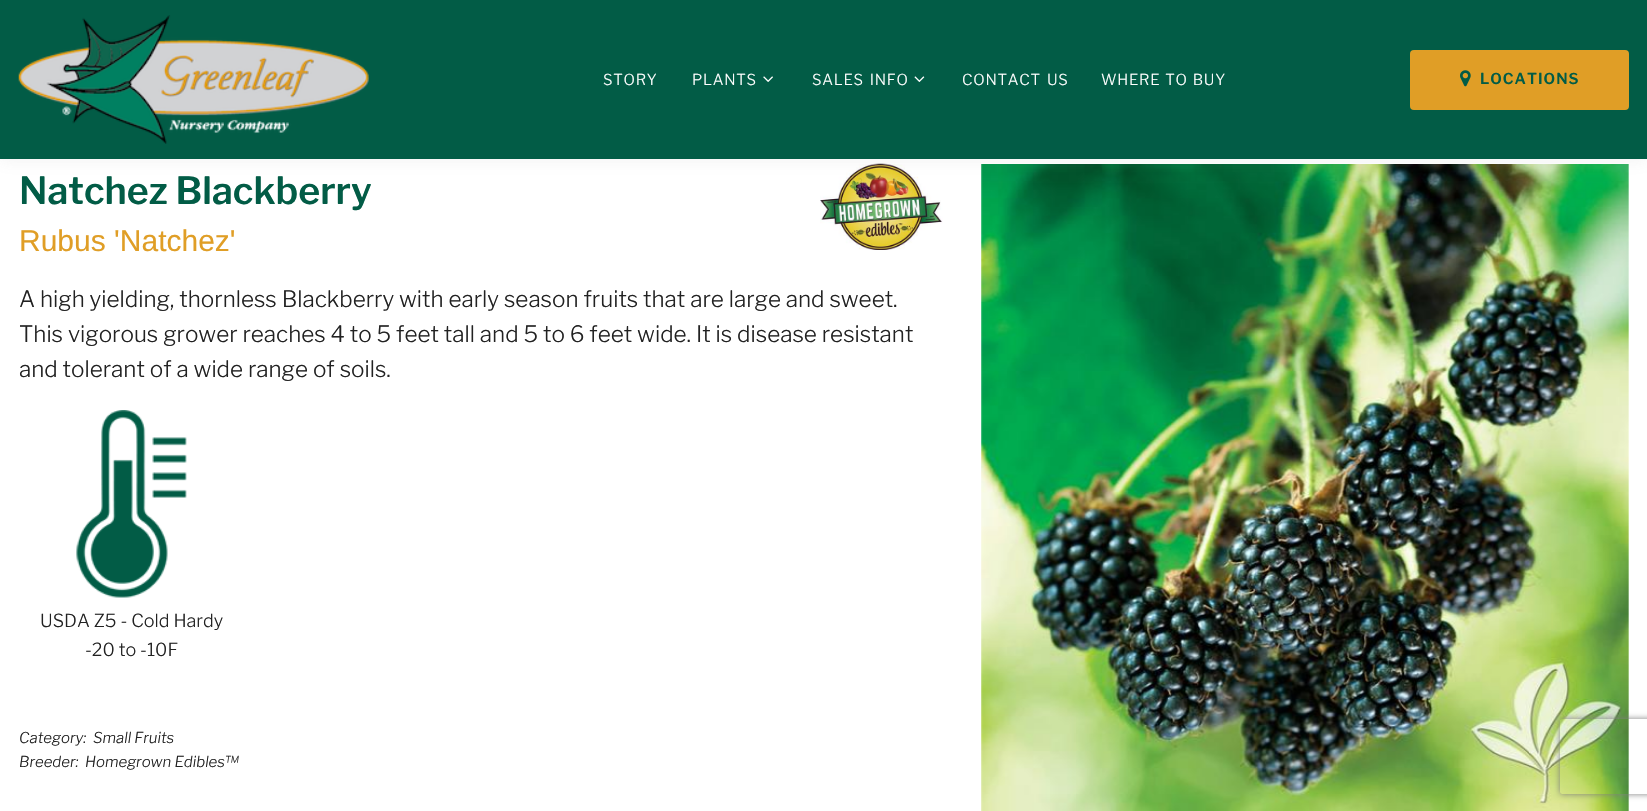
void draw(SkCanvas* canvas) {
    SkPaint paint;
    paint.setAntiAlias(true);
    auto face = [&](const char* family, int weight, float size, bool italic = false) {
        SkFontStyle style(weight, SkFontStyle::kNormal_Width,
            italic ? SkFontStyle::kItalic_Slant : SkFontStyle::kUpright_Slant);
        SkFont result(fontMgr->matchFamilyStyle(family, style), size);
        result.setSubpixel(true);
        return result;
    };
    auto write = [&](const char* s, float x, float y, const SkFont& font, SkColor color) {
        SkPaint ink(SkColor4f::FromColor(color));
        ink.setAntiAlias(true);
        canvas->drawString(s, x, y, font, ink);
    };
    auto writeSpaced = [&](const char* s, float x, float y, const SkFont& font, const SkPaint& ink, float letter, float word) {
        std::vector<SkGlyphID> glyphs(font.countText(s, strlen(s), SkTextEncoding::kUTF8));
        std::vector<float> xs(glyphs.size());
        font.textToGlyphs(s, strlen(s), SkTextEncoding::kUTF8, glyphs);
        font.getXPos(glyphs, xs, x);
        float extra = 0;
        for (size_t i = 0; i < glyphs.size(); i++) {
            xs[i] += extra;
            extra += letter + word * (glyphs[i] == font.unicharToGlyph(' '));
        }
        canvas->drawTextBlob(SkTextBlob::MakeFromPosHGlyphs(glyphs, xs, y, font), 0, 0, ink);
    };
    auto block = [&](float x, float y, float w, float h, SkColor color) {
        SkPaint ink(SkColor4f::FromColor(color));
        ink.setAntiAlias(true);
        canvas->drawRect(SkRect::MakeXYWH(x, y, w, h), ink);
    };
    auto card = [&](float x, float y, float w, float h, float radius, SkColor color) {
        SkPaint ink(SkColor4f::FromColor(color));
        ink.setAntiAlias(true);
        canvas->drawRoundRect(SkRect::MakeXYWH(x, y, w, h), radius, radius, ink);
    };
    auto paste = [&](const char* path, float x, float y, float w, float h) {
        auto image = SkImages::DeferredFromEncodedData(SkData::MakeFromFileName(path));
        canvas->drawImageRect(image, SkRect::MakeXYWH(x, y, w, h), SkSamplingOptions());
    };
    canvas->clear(SK_ColorWHITE);
    paste("pic5.png", 820, 163, 123, 87);
    paste("pic7.png", 981, 164, 648, 647);
    paint.setColor(SkColorSetARGB(26, 136, 136, 136));
    paint.setMaskFilter(SkMaskFilter::MakeBlur(kNormal_SkBlurStyle, 7.5f));
    canvas->drawRect(SkRect::MakeXYWH(0, 3, 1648, 158), paint);
    paint.setMaskFilter(nullptr);
    block(0, 0, 1647, 159, SkColorSetRGB(2, 92, 70));
    paste("pic1.png", 18, 15, 351, 129);
    auto kFont1 = face("Libre Franklin", 300, 15);
    paint.setColor(SK_ColorWHITE);
    writeSpaced("STORY", 603, 85, kFont1, paint, 0.75f, 0);
    writeSpaced("PLANTS", 692, 85, kFont1, paint, 0.75f, 0);
    paste("pic2.png", 763, 76, 10, 6);
    writeSpaced("SALES INFO", 812, 85, kFont1, paint, 0.75f, 2);
    paste("pic3.png", 914, 76, 11, 6);
    writeSpaced("CONTACT US", 962, 85, kFont1, paint, 0.75f, 2);
    writeSpaced("WHERE TO BUY", 1101, 85, kFont1, paint, 0.75f, 1);
    card(1410, 50, 219, 60, 4, SkColorSetRGB(224, 158, 38));
    paste("pic4.png", 1460, 70, 11, 17);
    auto kFont2 = face("Libre Franklin", 600, 15);
    paint.setColor(SkColorSetRGB(2, 92, 70));
    writeSpaced("LOCATIONS", 1480, 84, kFont2, paint, 1, 0);
    auto kFont3 = face("Libre Franklin", 600, 37.5f);
    write("Natchez Blackberry", 19, 204, kFont3, SkColorSetRGB(2, 92, 70));
    auto kFont4 = face("Liberation Sans", 400, 30);
    write("Rubus 'Natchez'", 19, 251, kFont4, SkColorSetRGB(224, 158, 38));
    auto kFont5 = face("Libre Franklin", 300, 22.5f);
    write("A high yielding, thornless Blackberry with early season fruits that are large and sweet.", 19, 307, kFont5, SkColorSetRGB(34, 34, 34));
    write("This vigorous grower reaches 4 to 5 feet tall and 5 to 6 feet wide. It is disease resistant", 19, 342, kFont5, SkColorSetRGB(34, 34, 34));
    write("and tolerant of a wide range of soils.", 19, 377, kFont5, SkColorSetRGB(34, 34, 34));
    paste("pic6.png", 76, 410, 111, 188);
    auto kFont6 = face("Libre Franklin", 300, 18);
    write("USDA Z5 - Cold Hardy", 40, 627, kFont6, SkColorSetRGB(34, 34, 34));
    write("-20 to -10F", 85, 656, kFont6, SkColorSetRGB(34, 34, 34));
    auto kFont7 = face("Libre Franklin", 100, 15, true);
    write("Category:", 19, 743, kFont7, SkColorSetRGB(34, 34, 34));
    write("Small Fruits", 93, 743, kFont7, SkColorSetRGB(34, 34, 34));
    write("Breeder:", 19, 767, kFont7, SkColorSetRGB(34, 34, 34));
    write("Homegrown Edibles™", 85, 767, kFont7, SkColorSetRGB(34, 34, 34));
    canvas->save();
    canvas->clipPath(SkPathBuilder(SkPathFillType::kEvenOdd).moveTo(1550, 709).lineTo(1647, 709).lineTo(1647, 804).lineTo(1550, 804).close().moveTo(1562.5f, 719).lineTo(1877.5f, 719).cubicTo(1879, 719, 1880, 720, 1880, 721.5f).lineTo(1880, 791.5f).cubicTo(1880, 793, 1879, 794, 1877.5f, 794).lineTo(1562.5f, 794).cubicTo(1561, 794, 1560, 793, 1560, 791.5f).lineTo(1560, 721.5f).cubicTo(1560, 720, 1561, 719, 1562.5f, 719).close().detach(), true);
    paint.setColor(SkColorSetRGB(128, 128, 128));
    paint.setMaskFilter(SkMaskFilter::MakeBlur(kNormal_SkBlurStyle, 3));
    canvas->drawRoundRect(SkRect::MakeXYWH(1560, 719, 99, 75), 2.5f, 2.5f, paint);
    paint.setMaskFilter(nullptr);
    canvas->restore();
}
